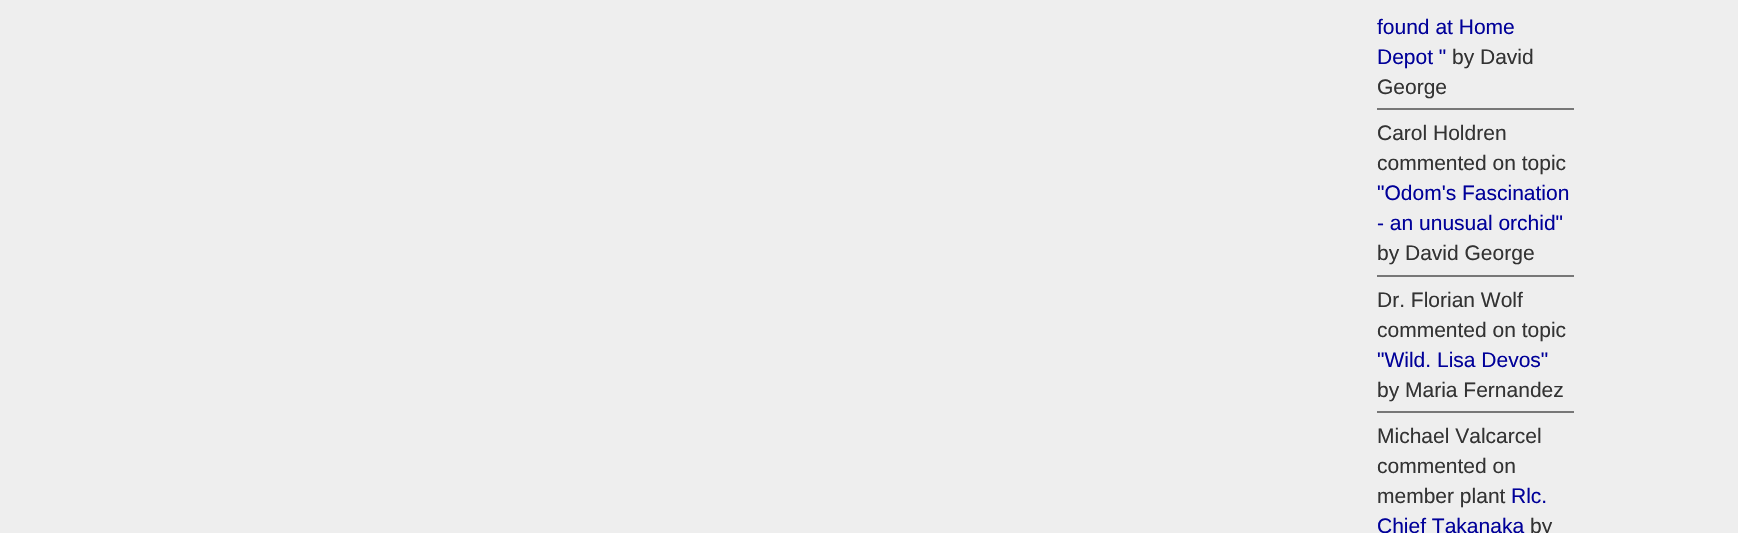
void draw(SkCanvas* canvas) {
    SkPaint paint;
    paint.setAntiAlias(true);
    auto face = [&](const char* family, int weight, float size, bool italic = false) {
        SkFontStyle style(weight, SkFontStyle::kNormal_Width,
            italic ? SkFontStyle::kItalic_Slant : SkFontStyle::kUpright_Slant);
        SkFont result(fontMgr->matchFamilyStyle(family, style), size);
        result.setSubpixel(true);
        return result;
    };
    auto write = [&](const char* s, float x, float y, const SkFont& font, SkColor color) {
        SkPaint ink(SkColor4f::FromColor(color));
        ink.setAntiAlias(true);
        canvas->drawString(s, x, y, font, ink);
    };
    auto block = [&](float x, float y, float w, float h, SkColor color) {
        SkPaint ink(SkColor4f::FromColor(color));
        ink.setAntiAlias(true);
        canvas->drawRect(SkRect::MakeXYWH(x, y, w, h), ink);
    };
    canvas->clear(SkColorSetRGB(238, 238, 238));
    block(1377, 108, 197, 2, SkColorSetRGB(119, 119, 119));
    auto kFont1 = face("Liberation Sans", 400, 21);
    write("found at Home", 1377, 34, kFont1, SkColorSetRGB(0, 0, 153));
    write("Depot \"", 1377, 64, kFont1, SkColorSetRGB(0, 0, 153));
    write("by David", 1452, 64, kFont1, SkColorSetRGB(51, 51, 51));
    write("George", 1377, 94, kFont1, SkColorSetRGB(51, 51, 51));
    block(1377, 275, 197, 2, SkColorSetRGB(119, 119, 119));
    write("Carol Holdren", 1377, 140, kFont1, SkColorSetRGB(51, 51, 51));
    write("commented on topic", 1377, 170, kFont1, SkColorSetRGB(51, 51, 51));
    write("\"Odom's Fascination", 1377, 200, kFont1, SkColorSetRGB(0, 0, 153));
    write("- an unusual orchid\"", 1377, 230, kFont1, SkColorSetRGB(0, 0, 153));
    write("by David George", 1377, 260, kFont1, SkColorSetRGB(51, 51, 51));
    block(1377, 411, 197, 2, SkColorSetRGB(119, 119, 119));
    write("Dr. Florian Wolf", 1377, 307, kFont1, SkColorSetRGB(51, 51, 51));
    write("commented on topic", 1377, 337, kFont1, SkColorSetRGB(51, 51, 51));
    write("\"Wild. Lisa Devos\"", 1377, 367, kFont1, SkColorSetRGB(0, 0, 153));
    write("by Maria Fernandez", 1377, 397, kFont1, SkColorSetRGB(51, 51, 51));
    write("Michael Valcarcel", 1377, 443, kFont1, SkColorSetRGB(51, 51, 51));
    write("commented on", 1377, 473, kFont1, SkColorSetRGB(51, 51, 51));
    write("member plant", 1377, 503, kFont1, SkColorSetRGB(51, 51, 51));
    write("Rlc.", 1511, 503, kFont1, SkColorSetRGB(0, 0, 153));
    write("Chief Takanaka", 1377, 533, kFont1, SkColorSetRGB(0, 0, 153));
    write("by", 1530, 533, kFont1, SkColorSetRGB(51, 51, 51));
}
